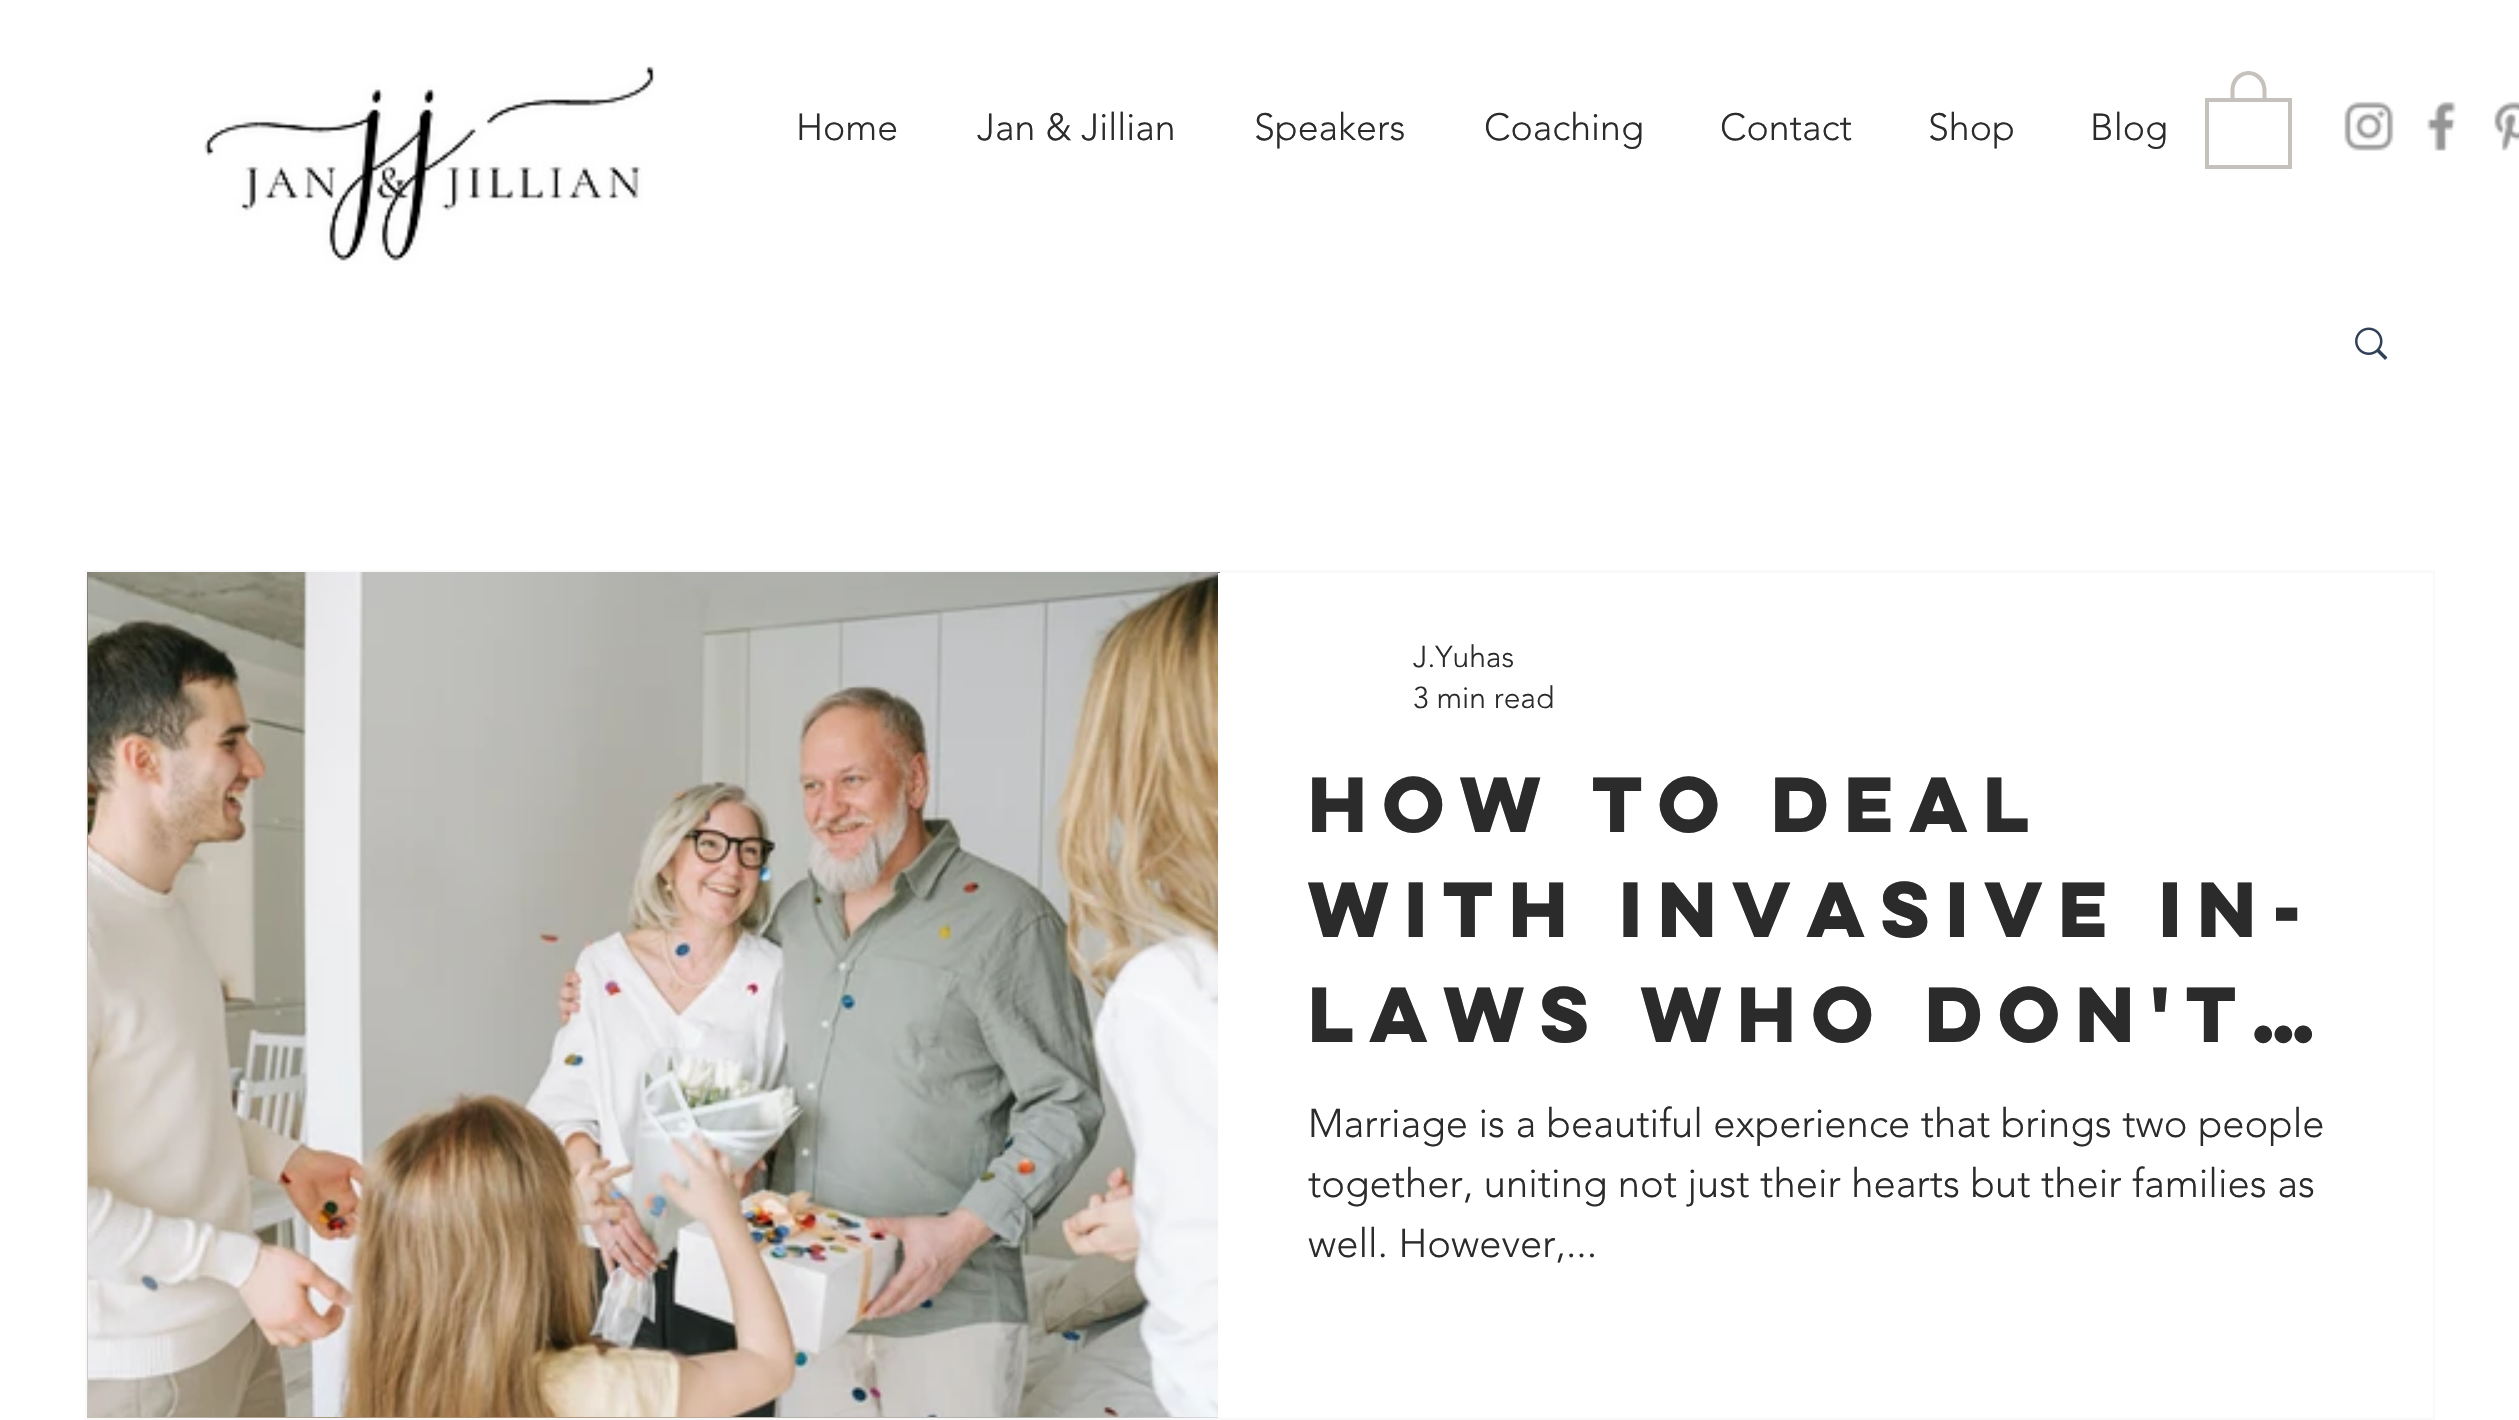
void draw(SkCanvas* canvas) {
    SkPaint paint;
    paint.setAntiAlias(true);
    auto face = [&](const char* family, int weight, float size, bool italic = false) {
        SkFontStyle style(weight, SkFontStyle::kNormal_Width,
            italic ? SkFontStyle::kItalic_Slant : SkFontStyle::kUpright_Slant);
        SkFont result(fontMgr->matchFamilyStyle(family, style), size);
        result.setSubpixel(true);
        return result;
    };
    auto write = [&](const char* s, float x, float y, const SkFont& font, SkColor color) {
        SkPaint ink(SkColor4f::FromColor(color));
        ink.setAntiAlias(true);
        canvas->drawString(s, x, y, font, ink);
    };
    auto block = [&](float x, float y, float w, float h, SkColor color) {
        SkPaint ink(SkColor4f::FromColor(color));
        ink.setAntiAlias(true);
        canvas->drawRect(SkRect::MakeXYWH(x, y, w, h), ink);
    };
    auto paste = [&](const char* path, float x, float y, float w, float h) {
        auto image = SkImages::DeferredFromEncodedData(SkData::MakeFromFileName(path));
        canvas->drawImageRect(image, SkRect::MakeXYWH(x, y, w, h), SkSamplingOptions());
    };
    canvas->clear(SK_ColorWHITE);
    paste("pic1.png", 204, 66, 451, 198);
    auto kFont1 = face("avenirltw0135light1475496", 300, 37.5f);
    write("Home", 796, 140, kFont1, SkColorSetRGB(43, 43, 43));
    write("Jan & Jillian", 977, 140, kFont1, SkColorSetRGB(43, 43, 43));
    write("Speakers", 1254, 140, kFont1, SkColorSetRGB(43, 43, 43));
    write("Coaching", 1484, 140, kFont1, SkColorSetRGB(43, 43, 43));
    write("Contact", 1720, 140, kFont1, SkColorSetRGB(43, 43, 43));
    write("Shop", 1928, 140, kFont1, SkColorSetRGB(43, 43, 43));
    write("Blog", 2090, 140, kFont1, SkColorSetRGB(43, 43, 43));
    paint.setColor(SkColorSetRGB(197, 193, 188));
    canvas->drawPath(SkPathBuilder().moveTo(2248.5f, 71).cubicTo(2238.5f, 71, 2230.5f, 79.5f, 2230.5f, 90).lineTo(2230.5f, 99.5f).lineTo(2234.5f, 99.5f).lineTo(2234.5f, 90).cubicTo(2234.5f, 82, 2241, 75, 2248.5f, 75).cubicTo(2256, 75, 2262.5f, 82, 2262.5f, 90).lineTo(2262.5f, 99.5f).lineTo(2266, 99.5f).lineTo(2266, 99).lineTo(2266.5f, 99).lineTo(2266.5f, 90).cubicTo(2266.5f, 79.5f, 2258.5f, 71, 2248.5f, 71).close().detach(), paint);
    canvas->drawPath(SkPathBuilder().moveTo(2288, 102).lineTo(2288, 165).lineTo(2209, 165).lineTo(2209, 102).lineTo(2288, 102).moveTo(2292, 98).lineTo(2205, 98).lineTo(2205, 169).lineTo(2292, 169).close().detach(), paint);
    paste("pic2.png", 2344, 101, 50, 50);
    paste("pic3.png", 2427, 101, 29, 50);
    paste("pic4.png", 2494, 101, 25, 50);
    paste("pic5.png", 2355, 327, 33, 33);
    paint.setStyle(SkPaint::kStroke_Style);
    paint.setStrokeWidth(3);
    paint.setColor(SkColorSetRGB(249, 249, 249));
    canvas->drawRect(SkRect::MakeXYWH(86.5f, 571.5f, 2347, 847), paint);
    paste("pic6.png", 87, 572, 1131, 846);
    paste("pic7.png", 88, 572, 1132, 845);
    block(1218, 573, 1215, 845, SK_ColorWHITE);
    auto kFont2 = face("avenirltw0135light1475496", 300, 30);
    write("J.Yuhas", 1413, 667, kFont2, SkColorSetRGB(43, 43, 43));
    write("3 min read", 1413, 708, kFont2, SkColorSetRGB(43, 43, 43));
    auto kFont3 = face("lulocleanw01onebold", 700, 70);
    write("How to Deal", 1308, 832, kFont3, SkColorSetRGB(43, 43, 43));
    write("With Invasive In-", 1308, 937, kFont3, SkColorSetRGB(43, 43, 43));
    write("Laws Who Don't…", 1308, 1042, kFont3, SkColorSetRGB(43, 43, 43));
    auto kFont4 = face("avenirltw0135light1475496", 300, 40);
    write("Marriage is a beautiful experience that brings two people", 1308, 1137, kFont4, SkColorSetRGB(43, 43, 43));
    write("together, uniting not just their hearts but their families as", 1308, 1197, kFont4, SkColorSetRGB(43, 43, 43));
    write("well. However,...", 1308, 1257, kFont4, SkColorSetRGB(43, 43, 43));
}
